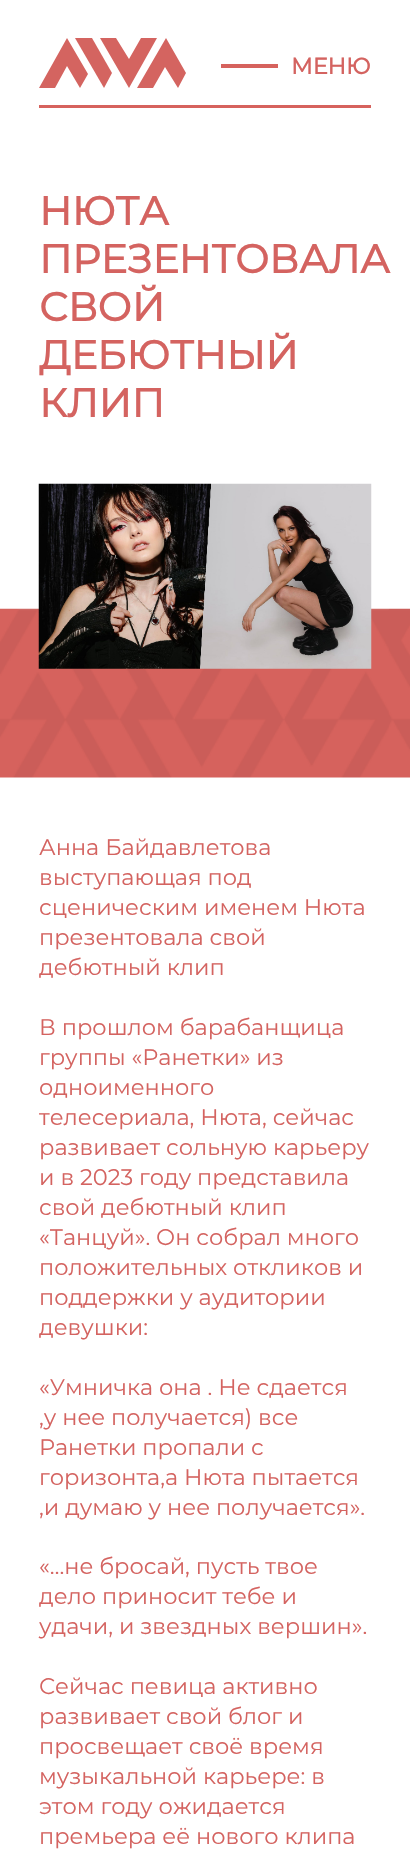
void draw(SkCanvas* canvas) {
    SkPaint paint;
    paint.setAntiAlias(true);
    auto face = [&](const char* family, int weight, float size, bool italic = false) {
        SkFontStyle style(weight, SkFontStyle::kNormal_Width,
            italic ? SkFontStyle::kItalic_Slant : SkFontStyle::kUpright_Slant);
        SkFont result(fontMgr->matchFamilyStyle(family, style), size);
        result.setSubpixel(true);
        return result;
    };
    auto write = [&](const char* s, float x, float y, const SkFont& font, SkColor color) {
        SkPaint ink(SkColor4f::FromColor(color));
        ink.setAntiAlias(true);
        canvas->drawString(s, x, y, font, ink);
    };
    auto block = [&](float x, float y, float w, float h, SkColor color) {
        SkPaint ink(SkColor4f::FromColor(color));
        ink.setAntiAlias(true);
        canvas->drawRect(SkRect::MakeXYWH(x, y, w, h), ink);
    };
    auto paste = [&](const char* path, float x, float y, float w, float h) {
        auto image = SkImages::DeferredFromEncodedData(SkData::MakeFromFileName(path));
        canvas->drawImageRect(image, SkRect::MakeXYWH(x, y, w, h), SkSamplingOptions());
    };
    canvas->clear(SK_ColorWHITE);
    paint.setColor(SkColorSetRGB(212, 100, 96));
    canvas->drawPath(SkPathBuilder().moveTo(67, 66).lineTo(80, 88).lineTo(88, 74).lineTo(67, 38).lineTo(39, 88).lineTo(55, 88).close().detach(), paint);
    canvas->drawPath(SkPathBuilder().moveTo(112, 73).lineTo(92, 38).lineTo(75, 38).lineTo(104, 88).close().detach(), paint);
    canvas->drawPath(SkPathBuilder().moveTo(165, 67).lineTo(178, 88).lineTo(186, 73).lineTo(166, 38).lineTo(137, 88).lineTo(153, 88).close().detach(), paint);
    canvas->drawPath(SkPathBuilder().moveTo(129, 59).lineTo(116, 38).lineTo(100, 38).lineTo(129, 88).lineTo(157, 38).lineTo(141, 38).close().detach(), paint);
    block(221, 64, 57, 4, SkColorSetRGB(214, 98, 93));
    auto kFont1 = face("Montserrat", 700, 22.5f);
    write("МЕНЮ", 291, 74, kFont1, SkColorSetRGB(212, 99, 96));
    block(39, 105, 332, 3, SkColorSetRGB(214, 98, 93));
    auto kFont2 = face("Montserrat", 700, 40);
    write("НЮТА", 39, 225, kFont2, SkColorSetRGB(212, 99, 96));
    write("ПРЕЗЕНТОВАЛА", 39, 273, kFont2, SkColorSetRGB(212, 99, 96));
    write("СВОЙ", 39, 321, kFont2, SkColorSetRGB(212, 99, 96));
    write("ДЕБЮТНЫЙ", 39, 369, kFont2, SkColorSetRGB(212, 99, 96));
    write("КЛИП", 39, 417, kFont2, SkColorSetRGB(212, 99, 96));
    paste("pic1.png", 0, 608, 410, 170);
    paste("pic2.png", 38, 483, 334, 186);
    auto kFont3 = face("Montserrat", 400, 22.5f);
    write("Анна Байдавлетова", 39, 855, kFont3, SkColorSetRGB(212, 99, 96));
    write("выступающая под", 39, 885, kFont3, SkColorSetRGB(212, 99, 96));
    write("сценическим именем Нюта", 39, 915, kFont3, SkColorSetRGB(212, 99, 96));
    write("презентовала свой", 39, 945, kFont3, SkColorSetRGB(212, 99, 96));
    write("дебютный клип", 39, 975, kFont3, SkColorSetRGB(212, 99, 96));
    write("В прошлом барабанщица", 39, 1035, kFont3, SkColorSetRGB(212, 99, 96));
    write("группы «Ранетки» из", 39, 1065, kFont3, SkColorSetRGB(212, 99, 96));
    write("одноименного", 39, 1095, kFont3, SkColorSetRGB(212, 99, 96));
    write("телесериала, Нюта, сейчас", 39, 1125, kFont3, SkColorSetRGB(212, 99, 96));
    write("развивает сольную карьеру", 39, 1155, kFont3, SkColorSetRGB(212, 99, 96));
    write("и в 2023 году представила", 39, 1185, kFont3, SkColorSetRGB(212, 99, 96));
    write("свой дебютный клип", 39, 1215, kFont3, SkColorSetRGB(212, 99, 96));
    write("«Танцуй». Он собрал много", 39, 1245, kFont3, SkColorSetRGB(212, 99, 96));
    write("положительных откликов и", 39, 1275, kFont3, SkColorSetRGB(212, 99, 96));
    write("поддержки у аудитории", 39, 1305, kFont3, SkColorSetRGB(212, 99, 96));
    write("девушки:", 39, 1335, kFont3, SkColorSetRGB(212, 99, 96));
    write("«Умничка она . Не сдается", 39, 1395, kFont3, SkColorSetRGB(212, 99, 96));
    write(",у нее получается) все", 39, 1425, kFont3, SkColorSetRGB(212, 99, 96));
    write("Ранетки пропали с", 39, 1455, kFont3, SkColorSetRGB(212, 99, 96));
    write("горизонта,а Нюта пытается", 39, 1485, kFont3, SkColorSetRGB(212, 99, 96));
    write(",и думаю у нее получается».", 39, 1515, kFont3, SkColorSetRGB(212, 99, 96));
    write("«…не бросай, пусть твое", 39, 1574, kFont3, SkColorSetRGB(212, 99, 96));
    write("дело приносит тебе и", 39, 1604, kFont3, SkColorSetRGB(212, 99, 96));
    write("удачи, и звездных вершин».", 39, 1634, kFont3, SkColorSetRGB(212, 99, 96));
    write("Сейчас певица активно", 39, 1694, kFont3, SkColorSetRGB(212, 99, 96));
    write("развивает свой блог и", 39, 1724, kFont3, SkColorSetRGB(212, 99, 96));
    write("просвещает своё время", 39, 1754, kFont3, SkColorSetRGB(212, 99, 96));
    write("музыкальной карьере: в", 39, 1784, kFont3, SkColorSetRGB(212, 99, 96));
    write("этом году ожидается", 39, 1814, kFont3, SkColorSetRGB(212, 99, 96));
    write("премьера её нового клипа", 39, 1844, kFont3, SkColorSetRGB(212, 99, 96));
}
